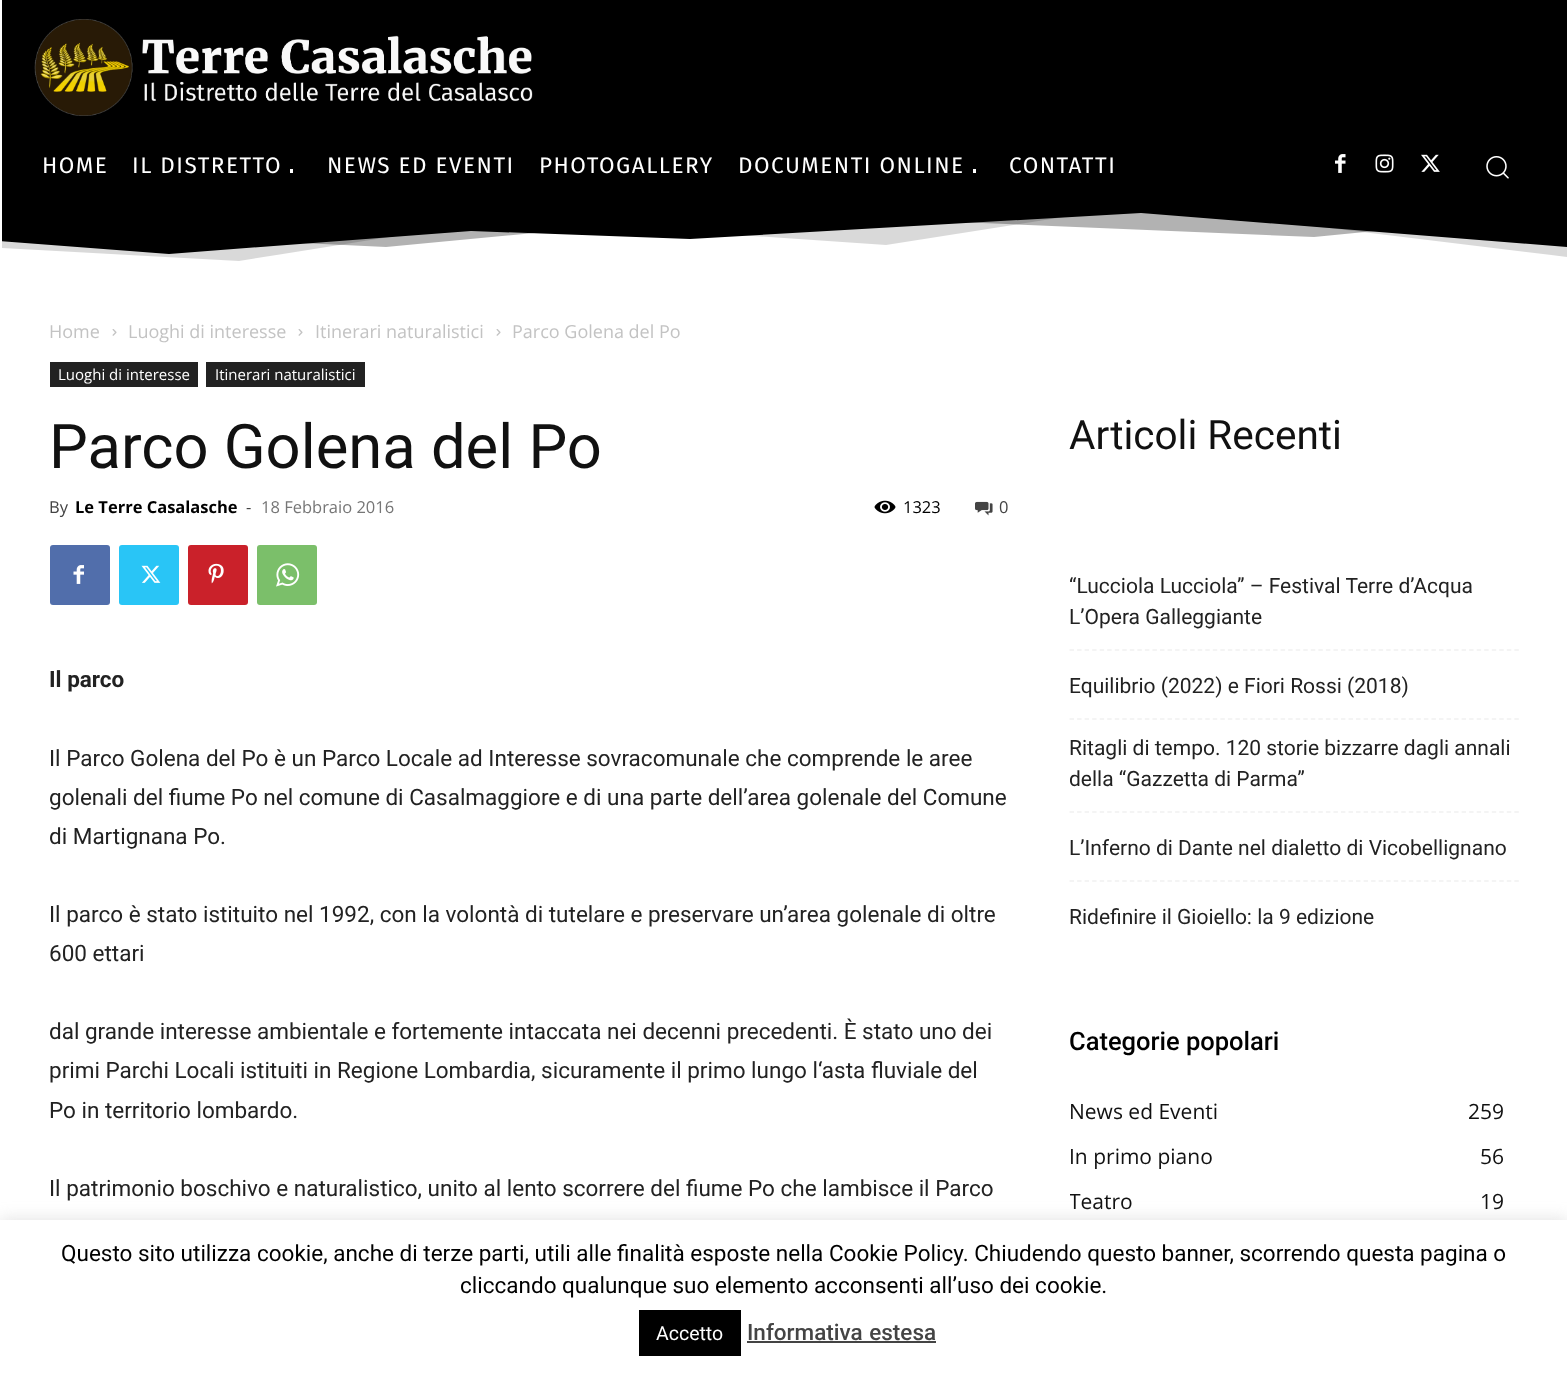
<svg xmlns="http://www.w3.org/2000/svg" width="1567" height="1374" viewBox="0 0 1567 1374">
  <defs>
    <clipPath id="clip1"><rect x="2" y="210" width="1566" height="60"/></clipPath>
    <clipPath id="clip2"><rect x="1070" y="551" width="450" height="420"/></clipPath>
    <clipPath id="clip3"><rect x="1070" y="1019" width="450" height="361"/></clipPath>
  </defs>
  <rect width="100%" height="100%" fill="rgb(255,255,255)"/>
  <rect x="2" y="0" width="1565" height="210" fill="rgb(0,0,0)"/>
  <image x="34" y="19" width="499" height="97" href="pic1.png"/>
  <g font-family="Fira Sans" font-size="22.5" letter-spacing="1.5" fill="rgb(255,255,255)">
    <text x="42" y="173">HOME</text>
    <text x="132" y="173">IL DISTRETTO</text>
  </g>
  <rect x="290" y="169" width="3" height="4" fill="rgb(255,255,255)"/>
  <g font-family="Fira Sans" font-size="22.5" letter-spacing="1.5" fill="rgb(255,255,255)">
    <text x="327" y="173">NEWS ED EVENTI</text>
    <text x="539" y="173">PHOTOGALLERY</text>
    <text x="738" y="173">DOCUMENTI ONLINE</text>
  </g>
  <rect x="973" y="169" width="3" height="4" fill="rgb(255,255,255)"/>
  <text x="1009" y="173" font-family="Fira Sans" font-size="22.5" letter-spacing="1.5" fill="rgb(255,255,255)">CONTATTI</text>
  <image x="1335" y="154" width="11" height="19" href="pic2.png"/>
  <image x="1375" y="154" width="19" height="19" href="pic3.png"/>
  <image x="1421" y="154" width="19" height="18" href="pic4.png"/>
  <image x="1486" y="156" width="23" height="23" href="pic5.png"/>
  <g clip-path="url(#clip1)">
    <path d="M0 193V241L169 254L471 231L690 239L1141 213L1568 247V193Z" fill="rgb(0,0,0)"/>
    <path d="M0 193V229L386 247L744 213L1314 237L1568 212V193Z" fill="rgba(0,0,0,0.3)"/>
    <path d="M0 193V248L239 261L502 219L886 245L1141 205L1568 257V193Z" fill="rgba(0,0,0,0.15)"/>
  </g>
  <text x="49" y="338" font-family="Open Sans" font-size="18" fill="rgb(195,195,195)">Home</text>
  <image x="112" y="329" width="5" height="7" href="pic6.png"/>
  <text x="128" y="338" font-family="Open Sans" font-size="18" fill="rgb(195,195,195)">Luoghi di interesse</text>
  <image x="298" y="329" width="5" height="7" href="pic6.png"/>
  <text x="315" y="338" font-family="Open Sans" font-size="18" fill="rgb(195,195,195)">Itinerari naturalistici</text>
  <image x="496" y="329" width="5" height="7" href="pic6.png"/>
  <text x="512" y="338" font-family="Open Sans" font-size="18" fill="rgb(195,195,195)">Parco Golena del Po</text>
  <rect x="50" y="362" width="148" height="25" fill="rgb(34,34,34)"/>
  <text x="58" y="380" font-family="Open Sans" font-size="15" fill="rgb(255,255,255)">Luoghi di interesse</text>
  <rect x="206" y="362" width="159" height="25" fill="rgb(34,34,34)"/>
  <text x="215" y="380" font-family="Open Sans" font-size="15" fill="rgb(255,255,255)">Itinerari naturalistici</text>
  <text x="49" y="468" font-family="Roboto" font-size="61.5" fill="rgb(17,17,17)">Parco Golena del Po</text>
  <text x="49" y="513" font-family="Open Sans" font-size="16.5" fill="rgb(68,68,68)">By</text>
  <text x="75" y="513" font-family="Open Sans" font-size="16.5" font-weight="bold" fill="rgb(0,0,0)">Le Terre Casalasche</text>
  <text x="246" y="513" font-family="Open Sans" font-size="16.5" fill="rgb(68,68,68)">-</text>
  <text x="261" y="513" font-family="Open Sans" font-size="16.5" fill="rgb(118,118,118)">18 Febbraio 2016</text>
  <image x="874" y="500" width="22" height="14" href="pic7.png"/>
  <text x="903" y="513" font-family="Open Sans" font-size="16.5" fill="rgb(0,0,0)">1323</text>
  <image x="975" y="501" width="18" height="15" href="pic8.png"/>
  <text x="999" y="513" font-family="Open Sans" font-size="16.5" fill="rgb(68,68,68)">0</text>
  <rect x="50" y="545" width="60" height="60" rx="3" fill="rgb(81,110,171)"/>
  <image x="73" y="565" width="11" height="19" href="pic9.png"/>
  <rect x="119" y="545" width="60" height="60" rx="3" fill="rgb(41,197,246)"/>
  <image x="141" y="565" width="20" height="18" href="pic10.png"/>
  <rect x="188" y="545" width="60" height="60" rx="3" fill="rgb(202,33,42)"/>
  <image x="208" y="563" width="16" height="21" href="pic11.png"/>
  <rect x="257" y="545" width="60" height="60" rx="3" fill="rgb(123,191,106)"/>
  <image x="276" y="563" width="24" height="24" href="pic12.png"/>
  <text x="49" y="687" font-family="Roboto" font-size="22.5" font-weight="bold" fill="rgb(34,34,34)">Il parco</text>
  <g font-family="Roboto" font-size="22.5" fill="rgb(34,34,34)">
    <text>
      <tspan x="49" y="766">Il Parco Golena del Po è un Parco Locale ad Interesse sovracomunale che comprende le aree</tspan>
      <tspan x="49" y="805">golenali del fiume Po nel comune di Casalmaggiore e di una parte dell’area golenale del Comune</tspan>
      <tspan x="49" y="844">di Martignana Po.</tspan>
    </text>
    <text>
      <tspan x="49" y="922">Il parco è stato istituito nel 1992, con la volontà di tutelare e preservare un’area golenale di oltre</tspan>
      <tspan x="49" y="961">600 ettari</tspan>
    </text>
    <text>
      <tspan x="49" y="1039">dal grande interesse ambientale e fortemente intaccata nei decenni precedenti. È stato uno dei</tspan>
      <tspan x="49" y="1078">primi Parchi Locali istituiti in Regione Lombardia, sicuramente il primo lungo l‘asta fluviale del</tspan>
      <tspan x="49" y="1118">Po in territorio lombardo.</tspan>
    </text>
    <text x="49" y="1196">Il patrimonio boschivo e naturalistico, unito al lento scorrere del fiume Po che lambisce il Parco</text>
  </g>
  <text x="1069" y="449" font-family="Roboto" font-size="40.5" fill="rgb(17,17,17)">Articoli Recenti</text>
  <path d="M1069.5 650H1519.5" fill="none" stroke="rgb(241,241,241)" stroke-width="1.5" stroke-dasharray="4.5 3.04"/>
  <g font-family="Roboto" font-size="21" fill="rgb(34,34,34)">
    <text>
      <tspan x="1069" y="593">“Lucciola Lucciola” – Festival Terre d’Acqua</tspan>
      <tspan x="1069" y="624">L’Opera Galleggiante</tspan>
    </text>
  </g>
  <path d="M1069.5 719H1519.5" fill="none" stroke="rgb(241,241,241)" stroke-width="1.5" stroke-dasharray="4.5 3.04"/>
  <text x="1069" y="693" font-family="Roboto" font-size="21" fill="rgb(34,34,34)">Equilibrio (2022) e Fiori Rossi (2018)</text>
  <path d="M1069.5 812H1519.5" fill="none" stroke="rgb(241,241,241)" stroke-width="1.5" stroke-dasharray="4.5 3.04"/>
  <text x="1069" y="755" font-family="Roboto" font-size="21" fill="rgb(34,34,34)">Ritagli di tempo. 120 storie bizzarre dagli annali</text>
  <g clip-path="url(#clip2)">
    <text x="1069" y="786" font-family="Roboto" font-size="21" fill="rgb(34,34,34)">della “Gazzetta di Parma”</text>
  </g>
  <path d="M1069.5 881H1519.5" fill="none" stroke="rgb(241,241,241)" stroke-width="1.5" stroke-dasharray="4.5 3.04"/>
  <g font-family="Roboto" font-size="21" fill="rgb(34,34,34)">
    <text x="1069" y="855">L’Inferno di Dante nel dialetto di Vicobellignano</text>
    <text x="1069" y="924">Ridefinire il Gioiello: la 9 edizione</text>
  </g>
  <text x="1069" y="1050" font-family="Roboto" font-size="25.5" font-weight="500" fill="rgb(0,0,0)">Categorie popolari</text>
  <g font-family="Open Sans" font-size="21" fill="rgb(17,17,17)">
    <text x="1069" y="1119">News ed Eventi</text>
    <text x="1468" y="1119">259</text>
    <text x="1069" y="1164">In primo piano</text>
    <text x="1480" y="1164">56</text>
  </g>
  <g clip-path="url(#clip3)">
    <text x="1069" y="1209" font-family="Open Sans" font-size="21" fill="rgb(17,17,17)">Teatro</text>
  </g>
  <text x="1480" y="1209" font-family="Open Sans" font-size="21" fill="rgb(17,17,17)">19</text>
  <rect x="0" y="1218" width="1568" height="155" fill="rgba(172,171,171,0.3)" filter="blur(7.5px)"/>
  <rect x="0" y="1220" width="1567" height="154" fill="rgb(255,255,255)"/>
  <g font-family="Roboto" font-size="22.5" fill="rgb(0,0,0)">
    <text x="61" y="1261">Questo sito utilizza cookie, anche di terze parti, utili alle finalità esposte nella Cookie Policy. Chiudendo questo banner, scorrendo questa pagina o</text>
    <text x="460" y="1293">cliccando qualunque suo elemento acconsenti all’uso dei cookie.</text>
  </g>
  <rect x="639" y="1310" width="102" height="46" fill="rgb(0,0,0)"/>
  <text x="656" y="1340" font-family="Roboto" font-size="19.5" fill="rgb(255,255,255)">Accetto</text>
  <text x="747" y="1340" word-spacing="1" font-family="Roboto" font-size="22.5" font-weight="500" fill="rgb(68,68,68)">Informativa estesa</text>
  <rect x="747" y="1341" width="189" height="2" fill="rgb(68,68,68)"/>
</svg>
